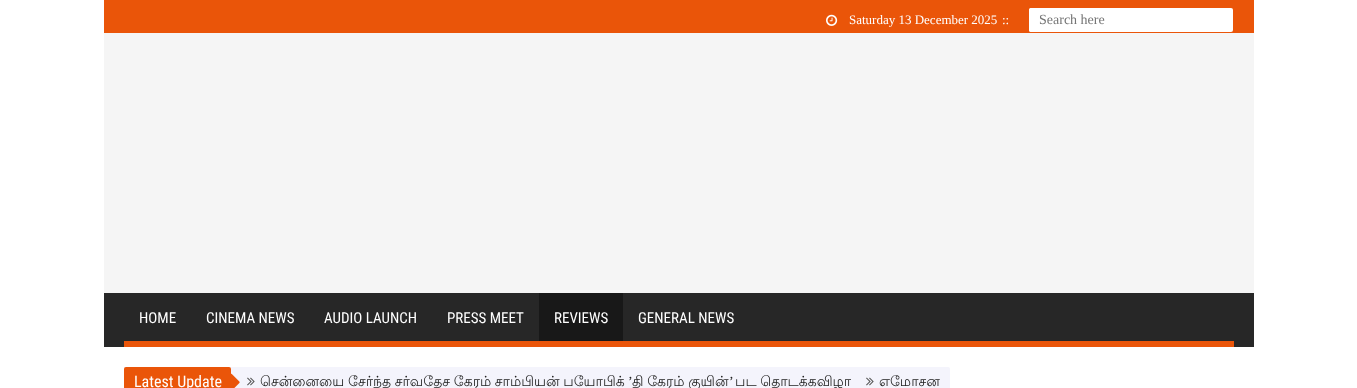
<svg xmlns="http://www.w3.org/2000/svg" width="1357" height="388" viewBox="0 0 1357 388">
  <rect width="100%" height="100%" fill="rgb(255,255,255)"/>
  <rect x="104" y="0" width="1150" height="33" fill="rgb(234,85,9)"/>
  <image x="826" y="14" width="12" height="12" href="pic1.png"/>
  <g font-family="Liberation Serif" font-size="13" fill="rgb(255,255,255)">
    <text x="849" y="24">Saturday 13 December 2025</text>
    <text x="1002" y="24">::</text>
  </g>
  <rect x="1029" y="8" width="204" height="24" rx="2" fill="rgb(255,255,255)"/>
  <path d="M1031 8H1199V32H1031C1030 32 1029 31 1029 30V10C1029 9 1030 8 1031 8Z" fill="rgb(255,255,255)"/>
  <text x="1039" y="24" font-family="Liberation Serif" font-size="14" fill="rgb(117,117,117)">Search here</text>
  <rect x="104" y="33" width="1150" height="260" fill="rgb(245,245,245)"/>
  <rect x="104" y="293" width="1150" height="54" fill="rgb(39,39,39)"/>
  <rect x="124" y="341" width="1110" height="6" fill="rgb(234,85,9)"/>
  <g font-family="Roboto Condensed" font-size="15" fill="rgb(255,255,255)">
    <text x="139" y="323">HOME</text>
    <text x="206" y="323">CINEMA NEWS</text>
    <text x="324" y="323">AUDIO LAUNCH</text>
    <text x="447" y="323">PRESS MEET</text>
  </g>
  <rect x="539" y="293" width="84" height="48" fill="rgb(24,24,24)"/>
  <g font-family="Roboto Condensed" font-size="15" fill="rgb(255,255,255)">
    <text x="554" y="323">REVIEWS</text>
    <text x="638" y="323">GENERAL NEWS</text>
  </g>
  <rect x="124" y="367" width="826" height="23" rx="2" fill="rgb(244,244,252)"/>
  <rect x="124" y="367" width="1" height="1" fill="rgb(244,244,252)"/>
  <rect x="124" y="367" width="107" height="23" rx="2" fill="rgb(234,85,9)"/>
  <text x="134" y="387" font-family="Roboto Condensed" font-size="16" fill="rgb(255,255,255)">Latest Update</text>
  <image x="231" y="373" width="9" height="15" href="pic2.png"/>
  <image x="247" y="377" width="8" height="9" href="pic3.png"/>
  <text x="260" y="386" word-spacing="-0.5" font-family="Lohit Tamil" font-size="14" fill="rgb(34,34,34)">சென்னையை சேர்ந்த சர்வதேச கேரம் சாம்பியன் பயோபிக்</text>
  <text x="628" y="386" font-family="Liberation Serif" font-size="14" fill="rgb(34,34,34)">’</text>
  <text x="632" y="386" word-spacing="-0.5" font-family="Lohit Tamil" font-size="14" fill="rgb(34,34,34)">தி கேரம் குயின்</text>
  <text x="729" y="386" font-family="Liberation Serif" font-size="14" fill="rgb(34,34,34)">’</text>
  <text x="735" y="386" word-spacing="-0.5" font-family="Lohit Tamil" font-size="14" fill="rgb(34,34,34)">பட தொடக்கவிழா</text>
  <image x="866" y="377" width="8" height="9" href="pic3.png"/>
  <text x="879" y="386" word-spacing="-1" font-family="Lohit Tamil" font-size="14" fill="rgb(34,34,34)">எமோசன</text>
</svg>
